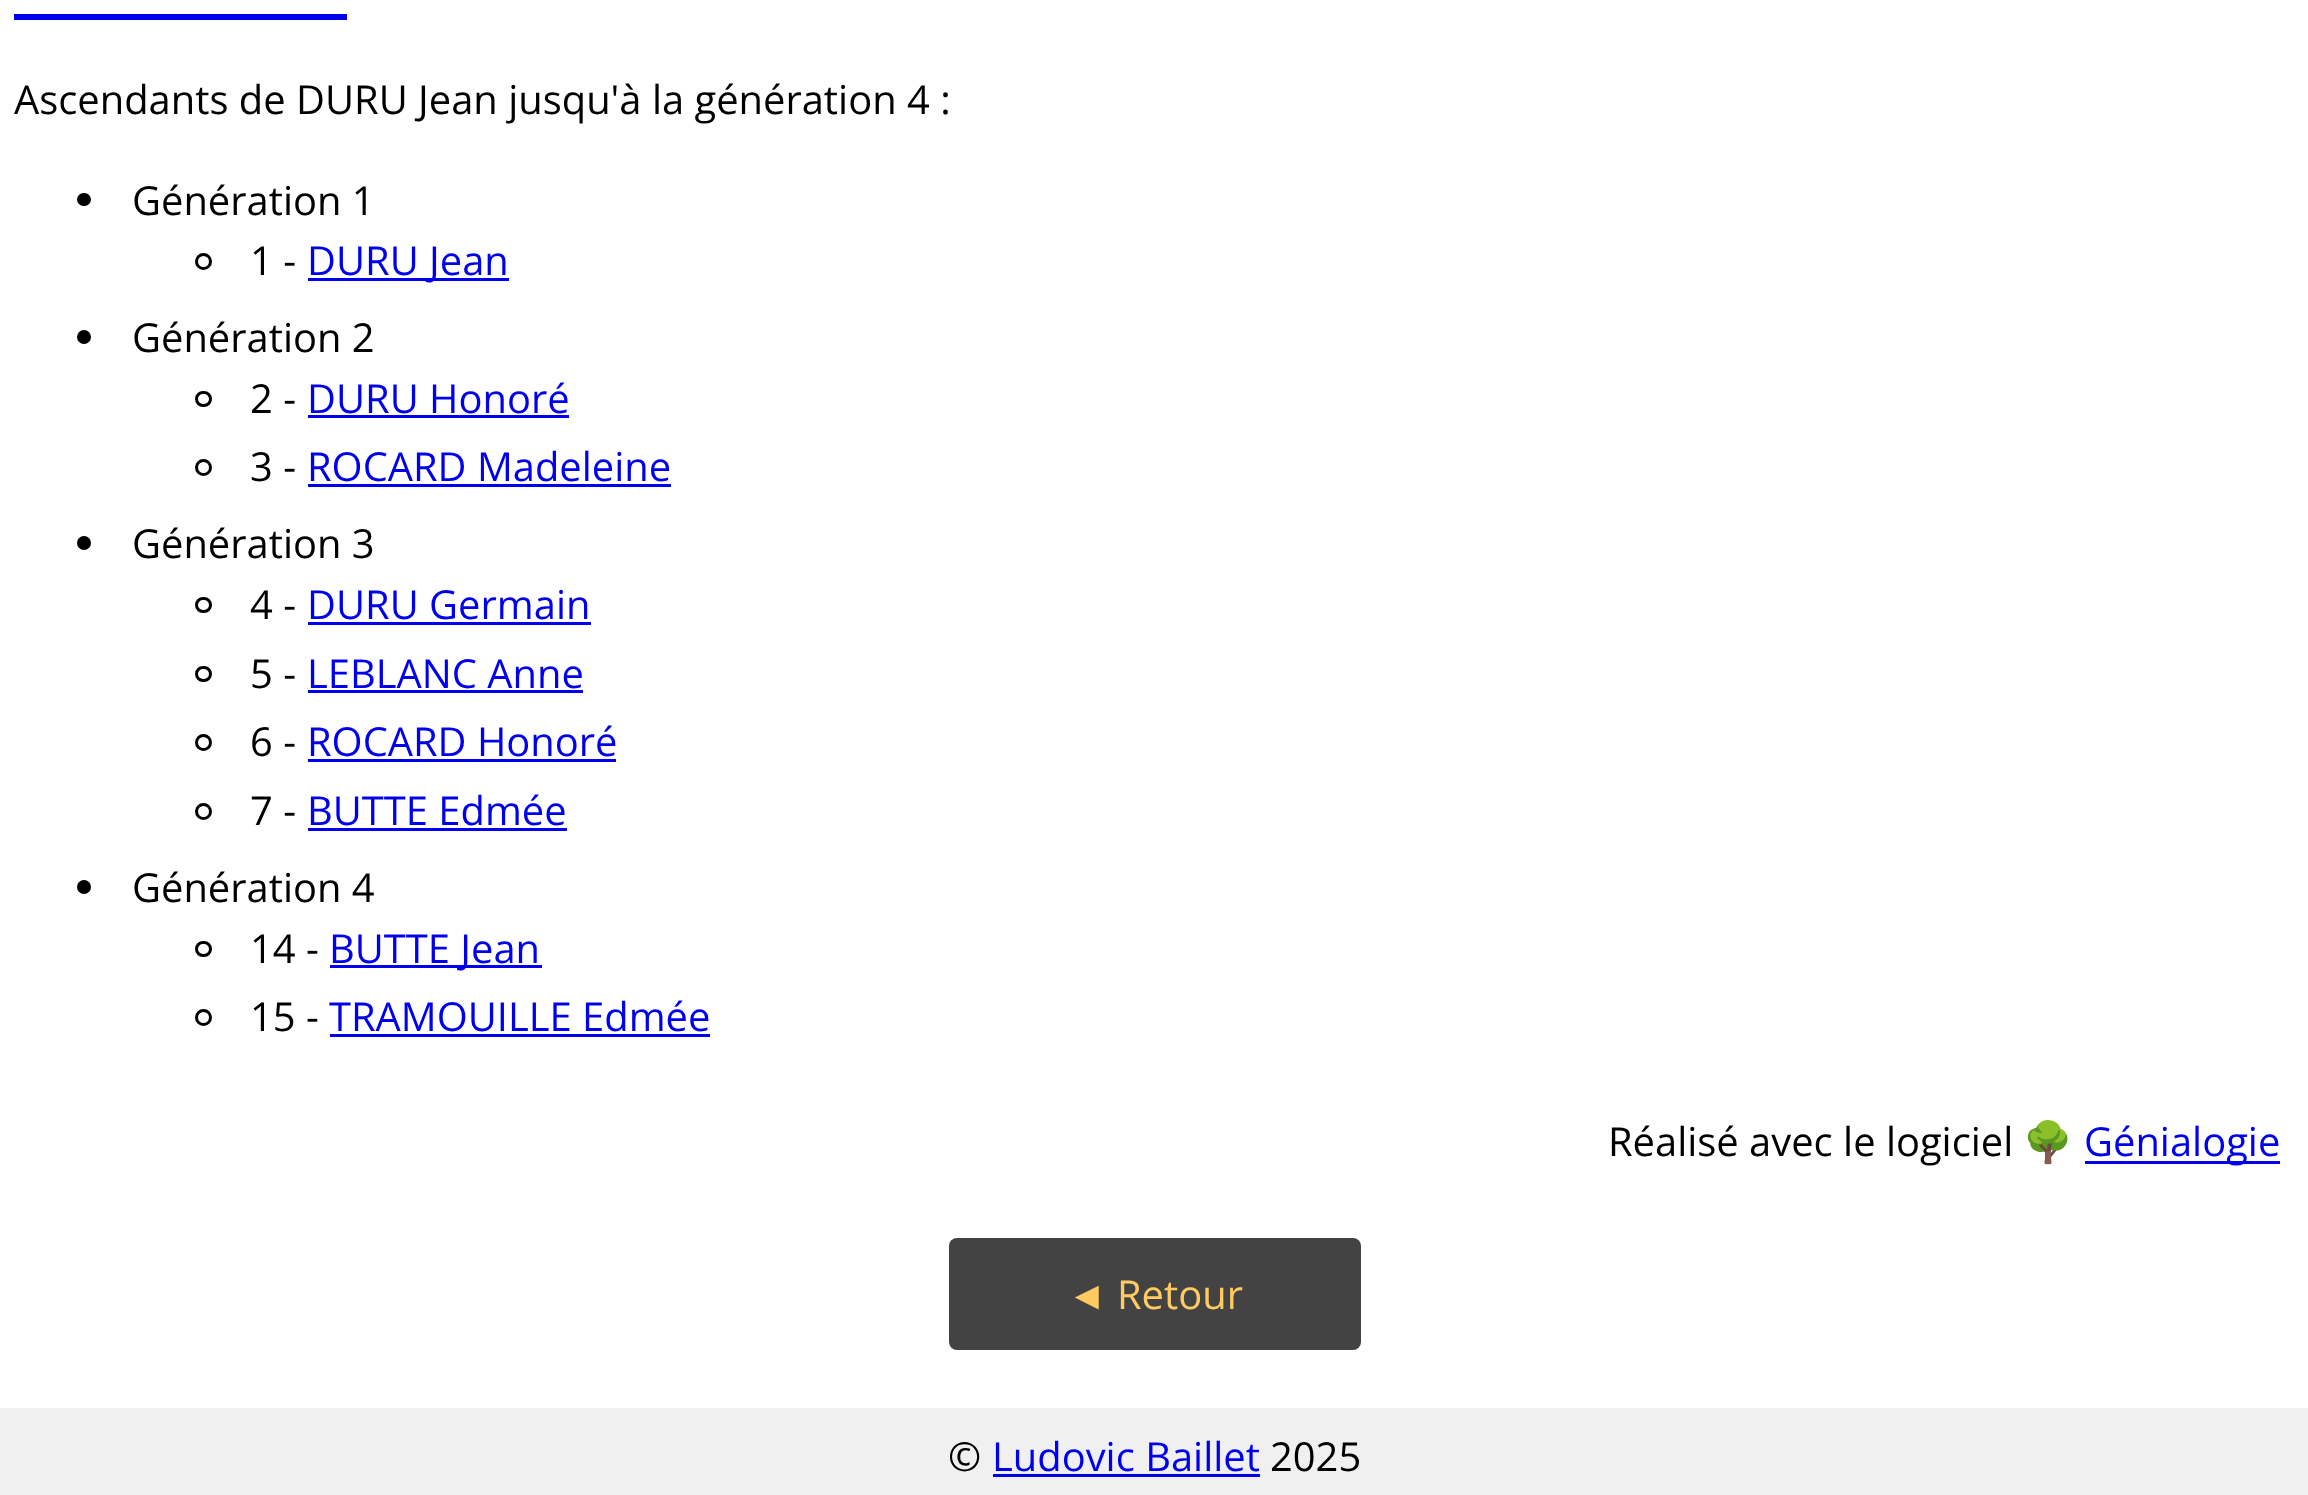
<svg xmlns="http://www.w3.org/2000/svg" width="2308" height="1495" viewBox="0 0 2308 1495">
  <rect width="100%" height="100%" fill="rgb(240,240,240)"/>
  <rect x="0" y="0" width="2308" height="1408" fill="rgb(255,255,255)"/>
  <rect x="14" y="14" width="333" height="6" fill="rgb(0,0,238)"/>
  <text x="14" y="114" font-family="Open Sans" font-size="39.9" fill="rgb(0,0,0)">Ascendants de DURU Jean jusqu'à la génération 4 :</text>
  <rect x="77" y="193" width="14" height="13" rx="6.5" fill="rgb(0,0,0)"/>
  <text x="132" y="215" font-family="Open Sans" font-size="39.9" fill="rgb(0,0,0)">Génération 1</text>
  <circle cx="203.5" cy="261.5" r="7" fill="none" stroke="rgb(0,0,0)" stroke-width="3"/>
  <text x="250" y="275" font-family="Open Sans" font-size="39.9" fill="rgb(0,0,0)">1 -</text>
  <rect x="308" y="278" width="201" height="3" fill="rgb(0,0,238)"/>
  <text x="307" y="275" font-family="Open Sans" font-size="39.9" fill="rgb(0,0,238)">DURU Jean</text>
  <circle cx="84" cy="337" r="7" fill="rgb(0,0,0)"/>
  <text x="132" y="352" font-family="Open Sans" font-size="39.9" fill="rgb(0,0,0)">Génération 2</text>
  <rect x="196.5" y="392.5" width="14" height="13" rx="6.5" fill="none" stroke="rgb(0,0,0)" stroke-width="3"/>
  <text x="250" y="413" font-family="Open Sans" font-size="39.9" fill="rgb(0,0,0)">2 -</text>
  <text x="307" y="413" font-family="Open Sans" font-size="39.9" fill="rgb(0,0,238)">DURU Honoré</text>
  <rect x="308" y="415" width="261" height="3" fill="rgb(0,0,238)"/>
  <circle cx="203.5" cy="467.5" r="7" fill="none" stroke="rgb(0,0,0)" stroke-width="3"/>
  <text x="250" y="481" font-family="Open Sans" font-size="39.9" fill="rgb(0,0,0)">3 -</text>
  <text x="307" y="481" font-family="Open Sans" font-size="39.9" fill="rgb(0,0,238)">ROCARD Madeleine</text>
  <rect x="308" y="484" width="363" height="3" fill="rgb(0,0,238)"/>
  <circle cx="84" cy="543" r="7" fill="rgb(0,0,0)"/>
  <text x="132" y="558" font-family="Open Sans" font-size="39.9" fill="rgb(0,0,0)">Génération 3</text>
  <rect x="196.5" y="598.5" width="14" height="13" rx="6.5" fill="none" stroke="rgb(0,0,0)" stroke-width="3"/>
  <text x="250" y="619" font-family="Open Sans" font-size="39.9" fill="rgb(0,0,0)">4 -</text>
  <text x="307" y="619" font-family="Open Sans" font-size="39.9" fill="rgb(0,0,238)">DURU Germain</text>
  <rect x="308" y="622" width="283" height="3" fill="rgb(0,0,238)"/>
  <rect x="196.5" y="667.5" width="14" height="13" rx="6.5" fill="none" stroke="rgb(0,0,0)" stroke-width="3"/>
  <text x="250" y="688" font-family="Open Sans" font-size="39.9" fill="rgb(0,0,0)">5 -</text>
  <text x="307" y="688" font-family="Open Sans" font-size="39.9" fill="rgb(0,0,238)">LEBLANC Anne</text>
  <rect x="308" y="690" width="275" height="3" fill="rgb(0,0,238)"/>
  <circle cx="203.5" cy="742.5" r="7" fill="none" stroke="rgb(0,0,0)" stroke-width="3"/>
  <text x="250" y="756" font-family="Open Sans" font-size="39.9" fill="rgb(0,0,0)">6 -</text>
  <text x="307" y="756" font-family="Open Sans" font-size="39.9" fill="rgb(0,0,238)">ROCARD Honoré</text>
  <rect x="308" y="759" width="308" height="3" fill="rgb(0,0,238)"/>
  <circle cx="203.5" cy="811.5" r="7" fill="none" stroke="rgb(0,0,0)" stroke-width="3"/>
  <text x="250" y="825" font-family="Open Sans" font-size="39.9" fill="rgb(0,0,0)">7 -</text>
  <text x="307" y="825" font-family="Open Sans" font-size="39.9" fill="rgb(0,0,238)">BUTTE Edmée</text>
  <rect x="308" y="828" width="259" height="3" fill="rgb(0,0,238)"/>
  <circle cx="84" cy="887" r="7" fill="rgb(0,0,0)"/>
  <text x="132" y="902" font-family="Open Sans" font-size="39.9" fill="rgb(0,0,0)">Génération 4</text>
  <rect x="196.5" y="942.5" width="14" height="13" rx="6.5" fill="none" stroke="rgb(0,0,0)" stroke-width="3"/>
  <text x="250" y="963" font-family="Open Sans" font-size="39.9" fill="rgb(0,0,0)">14 -</text>
  <rect x="330" y="965" width="212" height="3" fill="rgb(0,0,238)"/>
  <text x="329" y="963" font-family="Open Sans" font-size="39.9" fill="rgb(0,0,238)">BUTTE Jean</text>
  <circle cx="203.5" cy="1017.5" r="7" fill="none" stroke="rgb(0,0,0)" stroke-width="3"/>
  <text x="250" y="1031" font-family="Open Sans" font-size="39.9" fill="rgb(0,0,0)">15 -</text>
  <text x="329" y="1031" font-family="Open Sans" font-size="39.9" fill="rgb(0,0,238)">TRAMOUILLE Edmée</text>
  <rect x="330" y="1034" width="380" height="3" fill="rgb(0,0,238)"/>
  <text x="1608" y="1156" font-family="Open Sans" font-size="39.9" fill="rgb(0,0,0)">Réalisé avec le logiciel</text>
  <text x="2023" y="1156" font-family="Noto Color Emoji" font-size="39.9" fill="rgb(0,0,0)">🌳</text>
  <rect x="2085" y="1161" width="195" height="3" fill="rgb(0,0,238)"/>
  <text x="2084" y="1156" font-family="Open Sans" font-size="39.9" fill="rgb(0,0,238)">Génialogie</text>
  <rect x="949" y="1238" width="412" height="112" rx="8" fill="rgb(67,67,67)"/>
  <text x="1067" y="1309" font-family="Liberation Sans" font-size="39.9" fill="rgb(255,203,96)">◄</text>
  <text x="1117" y="1309" font-family="Open Sans" font-size="39.9" fill="rgb(255,203,96)">Retour</text>
  <text x="948" y="1471" font-family="Open Sans" font-size="39.9" fill="rgb(0,0,0)">©</text>
  <text x="992" y="1471" font-family="Open Sans" font-size="39.9" fill="rgb(0,0,238)">Ludovic Baillet</text>
  <rect x="993" y="1474" width="267" height="3" fill="rgb(0,0,238)"/>
  <text x="1270" y="1471" font-family="Open Sans" font-size="39.9" fill="rgb(0,0,0)">2025</text>
</svg>
